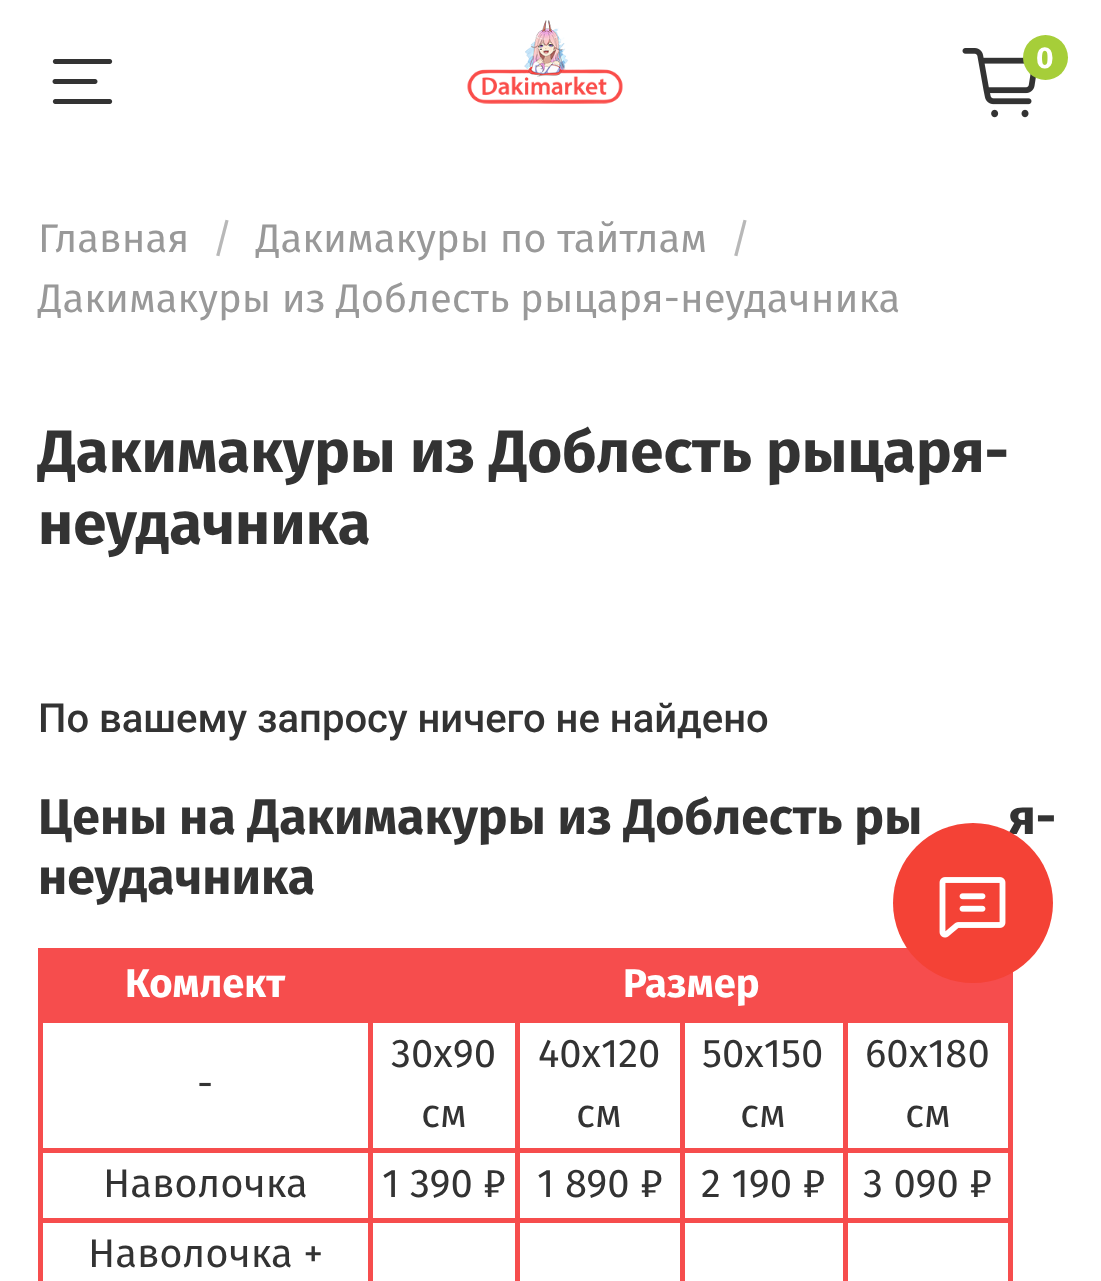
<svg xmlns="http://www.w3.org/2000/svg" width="1101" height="1281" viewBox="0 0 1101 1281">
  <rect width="100%" height="100%" fill="rgb(255,255,255)"/>
  <image x="52" y="59" width="61" height="45" href="pic1.png"/>
  <image x="467" y="20" width="156" height="84" href="pic2.png"/>
  <image x="962" y="48" width="74" height="70" href="pic3.png"/>
  <circle cx="1045.5" cy="57.5" r="22.5" fill="rgb(166,206,57)"/>
  <text x="1036" y="68" font-family="Fira Sans" font-size="30" font-weight="bold" fill="rgb(255,255,255)">0</text>
  <text x="38" y="252" font-family="Fira Sans" font-size="40" fill="rgb(153,153,153)">Главная</text>
  <text x="212" y="252" font-family="Fira Sans" font-size="40" fill="rgb(184,184,184)">/</text>
  <text x="256" y="252" font-family="Fira Sans" font-size="40" fill="rgb(153,153,153)">Дакимакуры по тайтлам</text>
  <text x="730" y="252" font-family="Fira Sans" font-size="40" fill="rgb(184,184,184)">/</text>
  <text x="38" y="312" font-family="Fira Sans" font-size="40" fill="rgb(153,153,153)">Дакимакуры из Доблесть рыцаря-неудачника</text>
  <g font-family="Fira Sans" font-size="60" font-weight="bold" fill="rgb(51,51,51)">
    <text>
      <tspan x="38" y="472">Дакимакуры из Доблесть рыцаря-</tspan>
      <tspan x="38" y="544">неудачника</tspan>
    </text>
  </g>
  <text x="38" y="732" font-family="Roboto" font-size="40" font-weight="500" fill="rgb(51,51,51)">По вашему запросу ничего не найдено</text>
  <g font-family="Fira Sans" font-size="50" font-weight="bold" fill="rgb(51,51,51)">
    <text x="38" y="834">Цены на Дакимакуры из Доблесть ры</text>
    <text x="1008" y="834">я-</text>
    <text x="38" y="894">неудачника</text>
  </g>
  <rect x="43" y="953" width="965" height="65" fill="rgb(246,77,77)"/>
  <rect x="38" y="948" width="873" height="5" fill="rgb(246,77,77)"/>
  <rect x="843" y="1018" width="170" height="5" fill="rgb(246,77,77)"/>
  <rect x="843" y="1148" width="170" height="5" fill="rgb(246,77,77)"/>
  <rect x="843" y="1218" width="170" height="5" fill="rgb(246,77,77)"/>
  <rect x="843" y="1218" width="5" height="63" fill="rgb(246,77,77)"/>
  <rect x="680" y="1218" width="168" height="5" fill="rgb(246,77,77)"/>
  <rect x="843" y="1148" width="5" height="75" fill="rgb(246,77,77)"/>
  <rect x="680" y="1148" width="168" height="5" fill="rgb(246,77,77)"/>
  <rect x="843" y="1018" width="5" height="135" fill="rgb(246,77,77)"/>
  <rect x="680" y="1018" width="168" height="5" fill="rgb(246,77,77)"/>
  <rect x="680" y="1218" width="5" height="63" fill="rgb(246,77,77)"/>
  <rect x="515" y="1218" width="170" height="5" fill="rgb(246,77,77)"/>
  <rect x="680" y="1148" width="5" height="75" fill="rgb(246,77,77)"/>
  <rect x="515" y="1148" width="170" height="5" fill="rgb(246,77,77)"/>
  <rect x="680" y="1018" width="5" height="135" fill="rgb(246,77,77)"/>
  <rect x="515" y="1018" width="170" height="5" fill="rgb(246,77,77)"/>
  <rect x="515" y="1218" width="5" height="63" fill="rgb(246,77,77)"/>
  <rect x="368" y="1218" width="152" height="5" fill="rgb(246,77,77)"/>
  <rect x="515" y="1148" width="5" height="75" fill="rgb(246,77,77)"/>
  <rect x="368" y="1148" width="152" height="5" fill="rgb(246,77,77)"/>
  <rect x="515" y="1018" width="5" height="135" fill="rgb(246,77,77)"/>
  <rect x="368" y="1018" width="152" height="5" fill="rgb(246,77,77)"/>
  <rect x="368" y="1218" width="5" height="63" fill="rgb(246,77,77)"/>
  <rect x="38" y="1218" width="335" height="5" fill="rgb(246,77,77)"/>
  <rect x="368" y="1148" width="5" height="75" fill="rgb(246,77,77)"/>
  <rect x="38" y="1148" width="335" height="5" fill="rgb(246,77,77)"/>
  <rect x="368" y="1018" width="5" height="135" fill="rgb(246,77,77)"/>
  <rect x="38" y="1018" width="335" height="5" fill="rgb(246,77,77)"/>
  <rect x="38" y="1218" width="5" height="63" fill="rgb(246,77,77)"/>
  <rect x="38" y="1148" width="5" height="75" fill="rgb(246,77,77)"/>
  <rect x="38" y="1018" width="5" height="135" fill="rgb(246,77,77)"/>
  <rect x="38" y="948" width="5" height="75" fill="rgb(246,77,77)"/>
  <g font-family="Fira Sans" font-size="40" font-weight="bold" fill="rgb(255,255,255)">
    <text x="125" y="997">Комлект</text>
    <text x="623" y="997">Размер</text>
  </g>
  <g font-family="Fira Sans" font-size="40" fill="rgb(51,51,51)">
    <text x="197" y="1097">-</text>
    <text x="391" y="1067">30х90</text>
    <text x="421" y="1127">см</text>
    <text x="538" y="1067">40х120</text>
    <text x="576" y="1127">см</text>
    <text x="702" y="1067">50х150</text>
    <text x="740" y="1127">см</text>
  </g>
  <rect x="1008" y="1218" width="5" height="63" fill="rgb(246,77,77)"/>
  <rect x="1008" y="1148" width="5" height="75" fill="rgb(246,77,77)"/>
  <rect x="1008" y="972" width="5" height="181" fill="rgb(246,77,77)"/>
  <g font-family="Fira Sans" font-size="40" fill="rgb(51,51,51)">
    <text x="865" y="1067">60х180</text>
    <text x="905" y="1127">см</text>
    <text x="103" y="1197">Наволочка</text>
    <text x="382" y="1197">1 390 ₽</text>
    <text x="537" y="1197">1 890 ₽</text>
    <text x="701" y="1197">2 190 ₽</text>
    <text x="863" y="1197">3 090 ₽</text>
    <text x="88" y="1267">Наволочка +</text>
  </g>
  <circle cx="973" cy="903" r="80" fill="rgb(244,66,54)"/>
  <image x="939" y="877" width="67" height="61" href="pic4.png"/>
</svg>
